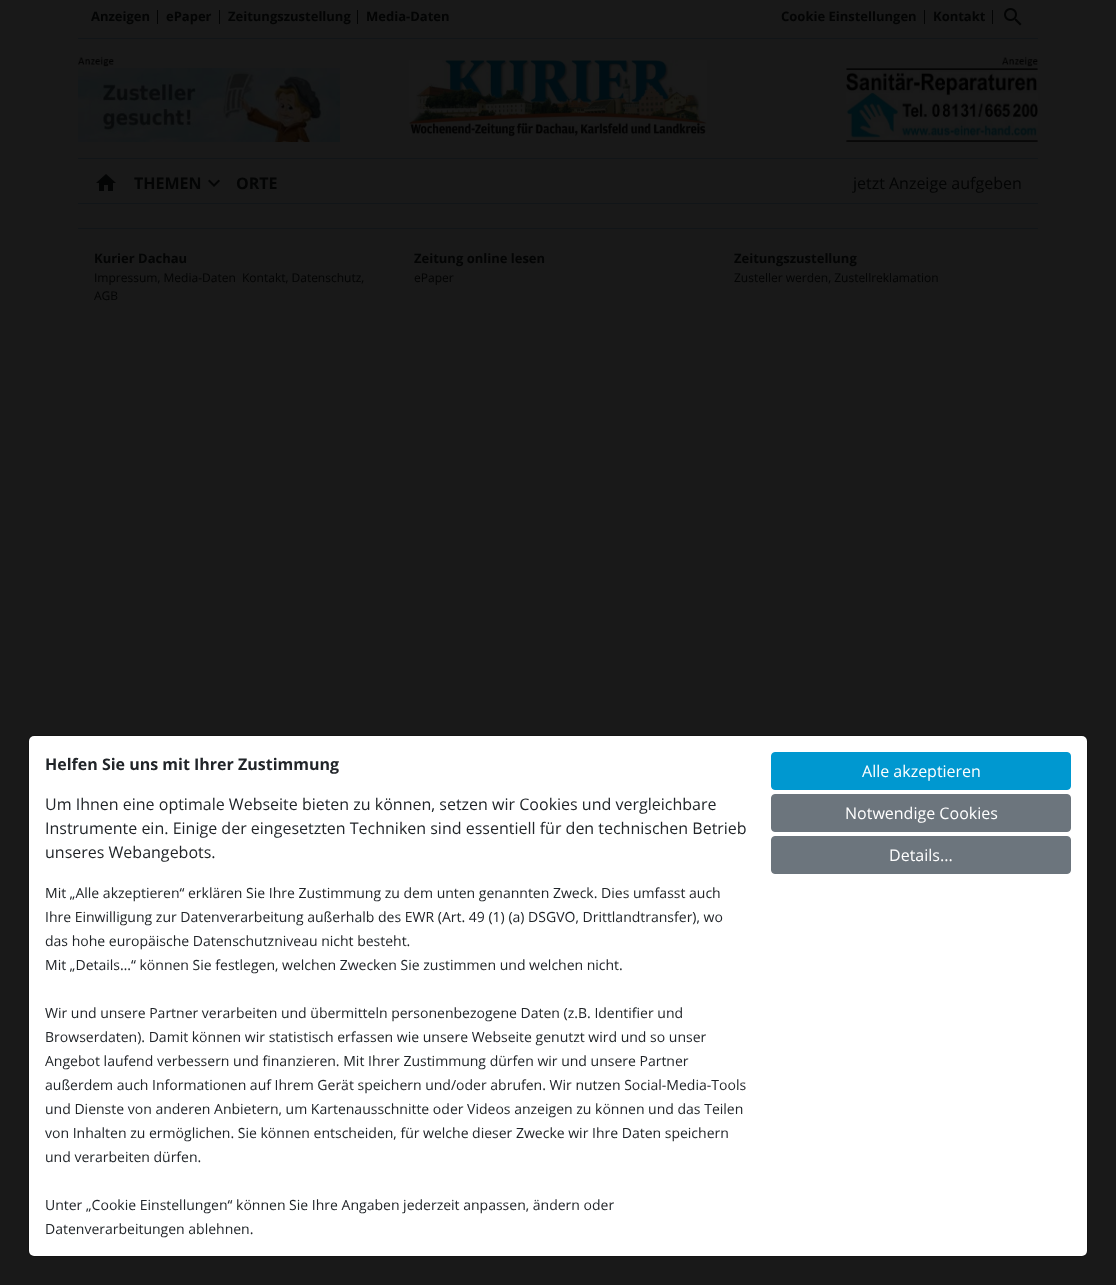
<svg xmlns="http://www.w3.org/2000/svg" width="1116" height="1285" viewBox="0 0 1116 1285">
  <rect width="100%" height="100%" fill="rgb(25,25,25)"/>
  <text x="91" y="21" font-family="Open Sans" font-size="13" font-weight="bold" fill="rgb(3,4,4)">Anzeigen</text>
  <rect x="157" y="10" width="1" height="14" fill="rgb(3,4,4)"/>
  <text x="166" y="21" font-family="Open Sans" font-size="13" font-weight="bold" fill="rgb(3,4,4)">ePaper</text>
  <rect x="219" y="10" width="1" height="14" fill="rgb(3,4,4)"/>
  <text x="228" y="21" font-family="Open Sans" font-size="13" font-weight="bold" fill="rgb(3,4,4)">Zeitungszustellung</text>
  <rect x="357" y="10" width="1" height="14" fill="rgb(3,4,4)"/>
  <g font-family="Open Sans" font-size="13" font-weight="bold" fill="rgb(3,4,4)">
    <text x="366" y="21">Media-Daten</text>
    <text x="781" y="21">Cookie Einstellungen</text>
  </g>
  <rect x="924" y="10" width="1" height="14" fill="rgb(3,4,4)"/>
  <text x="933" y="21" font-family="Open Sans" font-size="13" font-weight="bold" fill="rgb(3,4,4)">Kontakt</text>
  <rect x="992" y="10" width="1" height="14" fill="rgb(3,4,4)"/>
  <image x="1004" y="8" width="18" height="18" href="pic1.png"/>
  <rect x="78" y="38" width="960" height="1" fill="rgb(17,21,24)"/>
  <image x="78" y="56" width="36" height="11" href="pic2.png"/>
  <image x="78" y="68" width="262" height="74" href="pic3.png"/>
  <image x="409" y="60" width="298" height="77" href="pic4.png"/>
  <image x="1002" y="56" width="36" height="11" href="pic2.png"/>
  <image x="846" y="68" width="192" height="74" href="pic5.png"/>
  <rect x="78" y="158" width="960" height="1" fill="rgb(17,21,24)"/>
  <image x="96" y="174" width="20" height="17" href="pic6.png"/>
  <text x="134" y="189" font-family="Open Sans" font-size="16" font-weight="bold" fill="rgb(3,4,4)">THEMEN</text>
  <image x="208" y="179" width="12" height="8" href="pic7.png"/>
  <text x="236" y="189" font-family="Open Sans" font-size="16" font-weight="bold" fill="rgb(3,4,4)">ORTE</text>
  <text x="853" y="189" font-family="Open Sans" font-size="16" fill="rgb(3,4,4)">jetzt Anzeige aufgeben</text>
  <rect x="78" y="203" width="960" height="1" fill="rgb(17,21,24)"/>
  <rect x="78" y="228" width="960" height="1" fill="rgb(17,21,24)"/>
  <text x="94" y="263" font-family="Open Sans" font-size="13" font-weight="bold" fill="rgb(3,4,4)">Kurier Dachau</text>
  <g font-family="Open Sans" font-size="12" fill="rgb(3,4,4)">
    <text x="94" y="282">Impressum, Media-Daten</text>
    <text x="242" y="282">Kontakt, Datenschutz,</text>
    <text x="94" y="300">AGB</text>
  </g>
  <text x="414" y="263" font-family="Open Sans" font-size="13" font-weight="bold" fill="rgb(3,4,4)">Zeitung online lesen</text>
  <text x="414" y="282" font-family="Open Sans" font-size="12" fill="rgb(3,4,4)">ePaper</text>
  <text x="734" y="263" font-family="Open Sans" font-size="13" font-weight="bold" fill="rgb(3,4,4)">Zeitungszustellung</text>
  <text x="734" y="282" font-family="Open Sans" font-size="12" fill="rgb(3,4,4)">Zusteller werden, Zustellreklamation</text>
  <rect x="29" y="736" width="1058" height="520" rx="5" fill="rgb(255,255,255)"/>
  <rect x="28.5" y="735.5" width="1059" height="521" rx="5.5" fill="none" stroke="rgba(0,0,0,0.18)"/>
  <text x="45" y="770" font-family="Open Sans" font-size="16" font-weight="bold" fill="rgb(33,37,41)">Helfen Sie uns mit Ihrer Zustimmung</text>
  <g font-family="Open Sans" font-size="16" fill="rgb(33,37,41)">
    <text>
      <tspan x="45" y="810">Um Ihnen eine optimale Webseite bieten zu können, setzen wir Cookies und vergleichbare</tspan>
      <tspan x="45" y="834">Instrumente ein. Einige der eingesetzten Techniken sind essentiell für den technischen Betrieb</tspan>
      <tspan x="45" y="858">unseres Webangebots.</tspan>
    </text>
  </g>
  <g font-family="Open Sans" font-size="14" fill="rgb(33,37,41)">
    <text>
      <tspan x="45" y="898">Mit „Alle akzeptieren“ erklären Sie Ihre Zustimmung zu dem unten genannten Zweck. Dies umfasst auch</tspan>
      <tspan x="45" y="922">Ihre Einwilligung zur Datenverarbeitung außerhalb des EWR (Art. 49 (1) (a) DSGVO, Drittlandtransfer), wo</tspan>
      <tspan x="45" y="946">das hohe europäische Datenschutzniveau nicht besteht.</tspan>
      <tspan x="45" y="970">Mit „Details…“ können Sie festlegen, welchen Zwecken Sie zustimmen und welchen nicht.</tspan>
    </text>
    <text>
      <tspan x="45" y="1018">Wir und unsere Partner verarbeiten und übermitteln personenbezogene Daten (z.B. Identifier und</tspan>
      <tspan x="45" y="1042">Browserdaten). Damit können wir statistisch erfassen wie unsere Webseite genutzt wird und so unser</tspan>
      <tspan x="45" y="1066">Angebot laufend verbessern und finanzieren. Mit Ihrer Zustimmung dürfen wir und unsere Partner</tspan>
      <tspan x="45" y="1090">außerdem auch Informationen auf Ihrem Gerät speichern und/oder abrufen. Wir nutzen Social-Media-Tools</tspan>
      <tspan x="45" y="1114">und Dienste von anderen Anbietern, um Kartenausschnitte oder Videos anzeigen zu können und das Teilen</tspan>
      <tspan x="45" y="1138">von Inhalten zu ermöglichen. Sie können entscheiden, für welche dieser Zwecke wir Ihre Daten speichern</tspan>
      <tspan x="45" y="1162">und verarbeiten dürfen.</tspan>
    </text>
    <text>
      <tspan x="45" y="1210">Unter „Cookie Einstellungen“ können Sie Ihre Angaben jederzeit anpassen, ändern oder</tspan>
      <tspan x="45" y="1234">Datenverarbeitungen ablehnen.</tspan>
    </text>
  </g>
  <rect x="771.5" y="752.5" width="299" height="37" rx="3.5" fill="rgb(0,152,208)" stroke="rgb(0,152,208)"/>
  <text x="862" y="777" font-family="Open Sans" font-size="16" fill="rgb(255,255,255)">Alle akzeptieren</text>
  <rect x="771.5" y="794.5" width="299" height="37" rx="3.5" fill="rgb(108,117,125)" stroke="rgb(108,117,125)"/>
  <text x="845" y="819" font-family="Open Sans" font-size="16" fill="rgb(255,255,255)">Notwendige Cookies</text>
  <rect x="771.5" y="836.5" width="299" height="37" rx="3.5" fill="rgb(108,117,125)" stroke="rgb(108,117,125)"/>
  <text x="889" y="861" font-family="Open Sans" font-size="16" fill="rgb(255,255,255)">Details...</text>
</svg>
